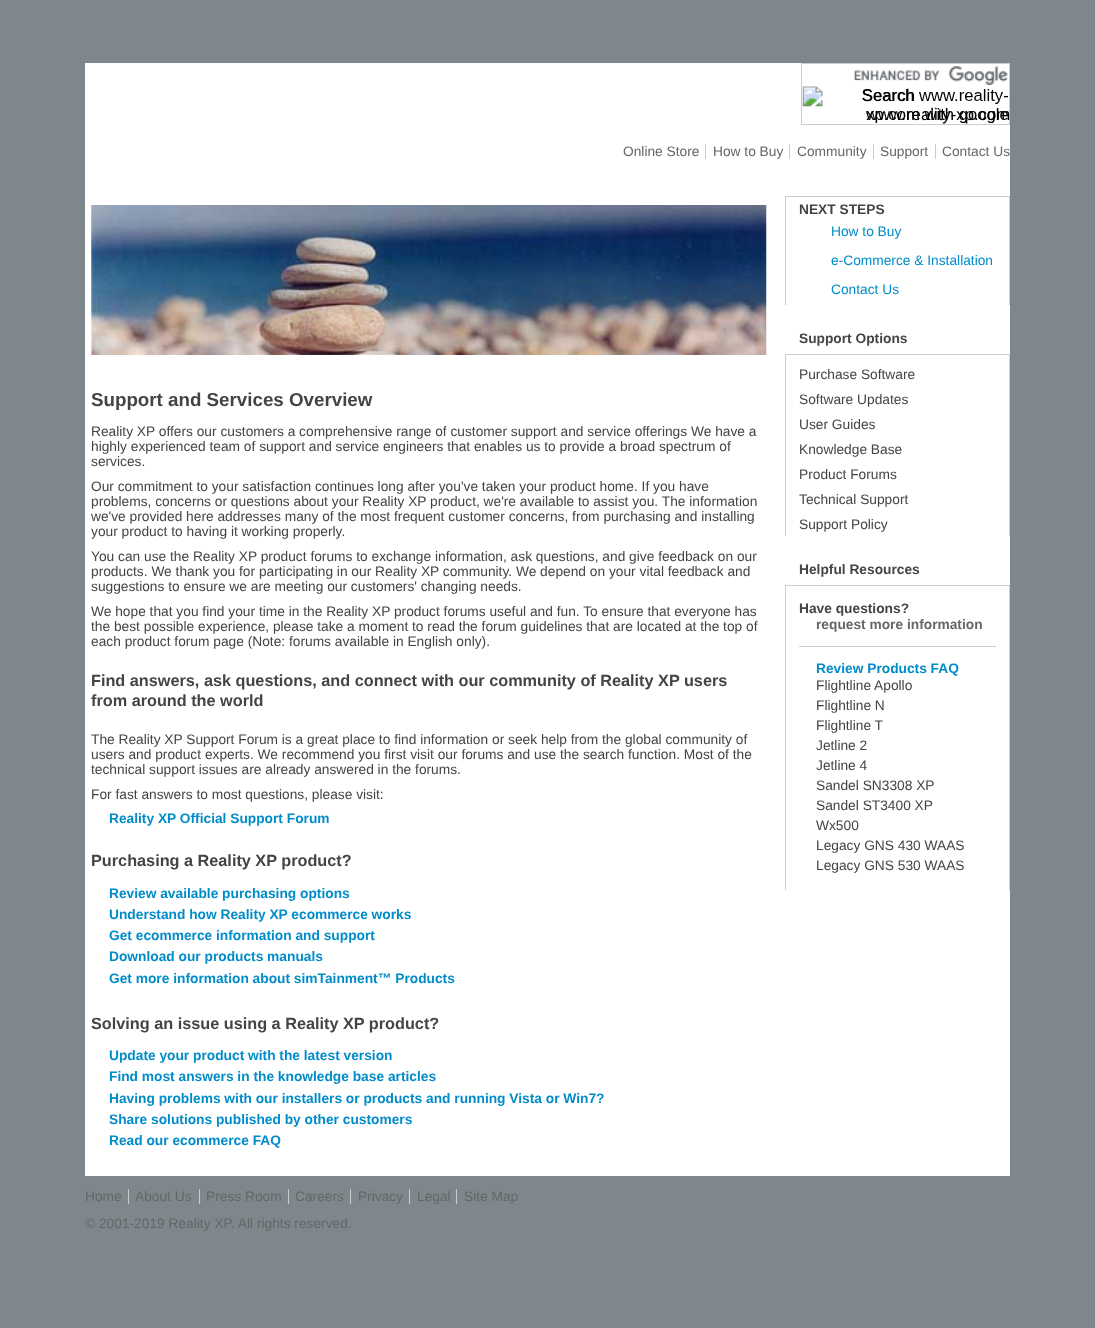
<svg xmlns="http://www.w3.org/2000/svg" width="1095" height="1328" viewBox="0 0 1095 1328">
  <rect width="100%" height="100%" fill="rgb(126,135,140)"/>
  <rect x="85" y="63" width="925" height="1113" fill="rgb(255,255,255)"/>
  <rect x="801.5" y="63.5" width="208" height="61" fill="none" stroke="rgb(204,204,204)"/>
  <image x="853" y="66" width="155" height="19" href="pic1.png"/>
  <image x="802" y="86" width="207" height="37" href="pic2.png"/>
  <g font-family="Liberation Sans" font-size="16.75" fill="rgb(0,0,0)">
    <text x="862" y="101">Search</text>
    <text x="866" y="120">www.reality-xp.com</text>
  </g>
  <rect x="705" y="144" width="1" height="15" fill="rgb(204,204,204)"/>
  <text x="623" y="156" font-family="Liberation Sans" font-size="13.75" fill="rgb(102,102,102)">Online Store</text>
  <rect x="789" y="144" width="1" height="15" fill="rgb(204,204,204)"/>
  <text x="713" y="156" font-family="Liberation Sans" font-size="13.75" fill="rgb(102,102,102)">How to Buy</text>
  <rect x="873" y="144" width="1" height="15" fill="rgb(204,204,204)"/>
  <text x="797" y="156" font-family="Liberation Sans" font-size="13.75" fill="rgb(102,102,102)">Community</text>
  <rect x="935" y="144" width="1" height="15" fill="rgb(204,204,204)"/>
  <g font-family="Liberation Sans" font-size="13.75" fill="rgb(102,102,102)">
    <text x="880" y="156">Support</text>
    <text x="942" y="156">Contact Us</text>
  </g>
  <image x="91" y="205" width="676" height="150" href="pic3.png"/>
  <text x="91" y="406" font-family="Liberation Sans" font-size="18.75" font-weight="bold" fill="rgb(68,68,68)">Support and Services Overview</text>
  <g font-family="Liberation Sans" font-size="13.75" fill="rgb(68,68,68)">
    <text>
      <tspan x="91" y="436">Reality XP offers our customers a comprehensive range of customer support and service offerings We have a</tspan>
      <tspan x="91" y="451">highly experienced team of support and service engineers that enables us to provide a broad spectrum of</tspan>
      <tspan x="91" y="466">services.</tspan>
      <tspan x="91" y="491">Our commitment to your satisfaction continues long after you've taken your product home. If you have</tspan>
      <tspan x="91" y="506">problems, concerns or questions about your Reality XP product, we're available to assist you. The information</tspan>
      <tspan x="91" y="521">we've provided here addresses many of the most frequent customer concerns, from purchasing and installing</tspan>
      <tspan x="91" y="536">your product to having it working properly.</tspan>
      <tspan x="91" y="561">You can use the Reality XP product forums to exchange information, ask questions, and give feedback on our</tspan>
      <tspan x="91" y="576">products. We thank you for participating in our Reality XP community. We depend on your vital feedback and</tspan>
      <tspan x="91" y="591">suggestions to ensure we are meeting our customers' changing needs.</tspan>
      <tspan x="91" y="616">We hope that you find your time in the Reality XP product forums useful and fun. To ensure that everyone has</tspan>
      <tspan x="91" y="631">the best possible experience, please take a moment to read the forum guidelines that are located at the top of</tspan>
      <tspan x="91" y="646">each product forum page (Note: forums available in English only).</tspan>
    </text>
  </g>
  <g font-family="Liberation Sans" font-size="16.25" font-weight="bold" fill="rgb(68,68,68)">
    <text>
      <tspan x="91" y="686">Find answers, ask questions, and connect with our community of Reality XP users</tspan>
      <tspan x="91" y="706">from around the world</tspan>
    </text>
  </g>
  <g font-family="Liberation Sans" font-size="13.75" fill="rgb(68,68,68)">
    <text>
      <tspan x="91" y="744">The Reality XP Support Forum is a great place to find information or seek help from the global community of</tspan>
      <tspan x="91" y="759">users and product experts. We recommend you first visit our forums and use the search function. Most of the</tspan>
      <tspan x="91" y="774">technical support issues are already answered in the forums.</tspan>
      <tspan x="91" y="799">For fast answers to most questions, please visit:</tspan>
    </text>
  </g>
  <text x="109" y="823" font-family="Liberation Sans" font-size="13.75" font-weight="bold" fill="rgb(0,140,201)">Reality XP Official Support Forum</text>
  <text x="91" y="866" font-family="Liberation Sans" font-size="16.25" font-weight="bold" fill="rgb(68,68,68)">Purchasing a Reality XP product?</text>
  <g font-family="Liberation Sans" font-size="13.75" font-weight="bold" fill="rgb(0,140,201)">
    <text>
      <tspan x="109" y="898">Review available purchasing options</tspan>
      <tspan x="109" y="919">Understand how Reality XP ecommerce works</tspan>
      <tspan x="109" y="940">Get ecommerce information and support</tspan>
      <tspan x="109" y="961">Download our products manuals</tspan>
      <tspan x="109" y="983">Get more information about simTainment™ Products</tspan>
    </text>
  </g>
  <text x="91" y="1029" font-family="Liberation Sans" font-size="16.25" font-weight="bold" fill="rgb(68,68,68)">Solving an issue using a Reality XP product?</text>
  <g font-family="Liberation Sans" font-size="13.75" font-weight="bold" fill="rgb(0,140,201)">
    <text>
      <tspan x="109" y="1060">Update your product with the latest version</tspan>
      <tspan x="109" y="1081">Find most answers in the knowledge base articles</tspan>
      <tspan x="109" y="1103">Having problems with our installers or products and running Vista or Win7?</tspan>
      <tspan x="109" y="1124">Share solutions published by other customers</tspan>
      <tspan x="109" y="1145">Read our ecommerce FAQ</tspan>
    </text>
  </g>
  <rect x="785" y="196" width="225" height="1" fill="rgb(204,204,204)"/>
  <rect x="1009" y="196" width="1" height="109" fill="rgb(204,204,204)"/>
  <rect x="785" y="196" width="1" height="109" fill="rgb(204,204,204)"/>
  <text x="799" y="214" font-family="Liberation Sans" font-size="13.75" font-weight="bold" fill="rgb(68,68,68)">NEXT STEPS</text>
  <g font-family="Liberation Sans" font-size="13.75" fill="rgb(0,140,201)">
    <text x="831" y="236">How to Buy</text>
    <text x="831" y="265">e-Commerce &amp; Installation</text>
    <text x="831" y="294">Contact Us</text>
  </g>
  <text x="799" y="343" font-family="Liberation Sans" font-size="13.75" font-weight="bold" fill="rgb(68,68,68)">Support Options</text>
  <rect x="785" y="354" width="225" height="1" fill="rgb(204,204,204)"/>
  <rect x="1009" y="354" width="1" height="182" fill="rgb(204,204,204)"/>
  <rect x="785" y="354" width="1" height="182" fill="rgb(204,204,204)"/>
  <g font-family="Liberation Sans" font-size="13.75" fill="rgb(68,68,68)">
    <text>
      <tspan x="799" y="379">Purchase Software</tspan>
      <tspan x="799" y="404">Software Updates</tspan>
      <tspan x="799" y="429">User Guides</tspan>
      <tspan x="799" y="454">Knowledge Base</tspan>
      <tspan x="799" y="479">Product Forums</tspan>
      <tspan x="799" y="504">Technical Support</tspan>
      <tspan x="799" y="529">Support Policy</tspan>
    </text>
  </g>
  <text x="799" y="574" font-family="Liberation Sans" font-size="13.75" font-weight="bold" fill="rgb(68,68,68)">Helpful Resources</text>
  <rect x="785" y="585" width="225" height="1" fill="rgb(204,204,204)"/>
  <rect x="1009" y="585" width="1" height="305" fill="rgb(204,204,204)"/>
  <rect x="785" y="585" width="1" height="305" fill="rgb(204,204,204)"/>
  <text x="799" y="613" font-family="Liberation Sans" font-size="13.75" font-weight="bold" fill="rgb(68,68,68)">Have questions?</text>
  <text x="816" y="629" font-family="Liberation Sans" font-size="13.75" font-weight="bold" fill="rgb(102,102,102)">request more information</text>
  <rect x="799" y="646" width="197" height="1" fill="rgb(204,204,204)"/>
  <text x="816" y="673" font-family="Liberation Sans" font-size="13.75" font-weight="bold" fill="rgb(0,140,201)">Review Products FAQ</text>
  <g font-family="Liberation Sans" font-size="13.75" fill="rgb(68,68,68)">
    <text>
      <tspan x="816" y="690">Flightline Apollo</tspan>
      <tspan x="816" y="710">Flightline N</tspan>
      <tspan x="816" y="730">Flightline T</tspan>
      <tspan x="816" y="750">Jetline 2</tspan>
      <tspan x="816" y="770">Jetline 4</tspan>
      <tspan x="816" y="790">Sandel SN3308 XP</tspan>
      <tspan x="816" y="810">Sandel ST3400 XP</tspan>
      <tspan x="816" y="830">Wx500</tspan>
      <tspan x="816" y="850">Legacy GNS 430 WAAS</tspan>
      <tspan x="816" y="870">Legacy GNS 530 WAAS</tspan>
    </text>
  </g>
  <text x="85" y="1201" font-family="Liberation Sans" font-size="13.75" fill="rgb(102,102,102)">Home</text>
  <rect x="128" y="1189" width="1" height="15" fill="rgb(204,204,204)"/>
  <text x="135" y="1201" font-family="Liberation Sans" font-size="13.75" fill="rgb(102,102,102)">About Us</text>
  <rect x="199" y="1189" width="1" height="15" fill="rgb(204,204,204)"/>
  <text x="206" y="1201" font-family="Liberation Sans" font-size="13.75" fill="rgb(102,102,102)">Press Room</text>
  <rect x="288" y="1189" width="1" height="15" fill="rgb(204,204,204)"/>
  <text x="295" y="1201" font-family="Liberation Sans" font-size="13.75" fill="rgb(102,102,102)">Careers</text>
  <rect x="350" y="1189" width="1" height="15" fill="rgb(204,204,204)"/>
  <text x="358" y="1201" font-family="Liberation Sans" font-size="13.75" fill="rgb(102,102,102)">Privacy</text>
  <rect x="409" y="1189" width="1" height="15" fill="rgb(204,204,204)"/>
  <text x="417" y="1201" font-family="Liberation Sans" font-size="13.75" fill="rgb(102,102,102)">Legal</text>
  <rect x="456" y="1189" width="1" height="15" fill="rgb(204,204,204)"/>
  <g font-family="Liberation Sans" font-size="13.75" fill="rgb(102,102,102)">
    <text x="464" y="1201">Site Map</text>
    <text x="85" y="1228">© 2001-2019 Reality XP. All rights reserved.</text>
  </g>
</svg>
